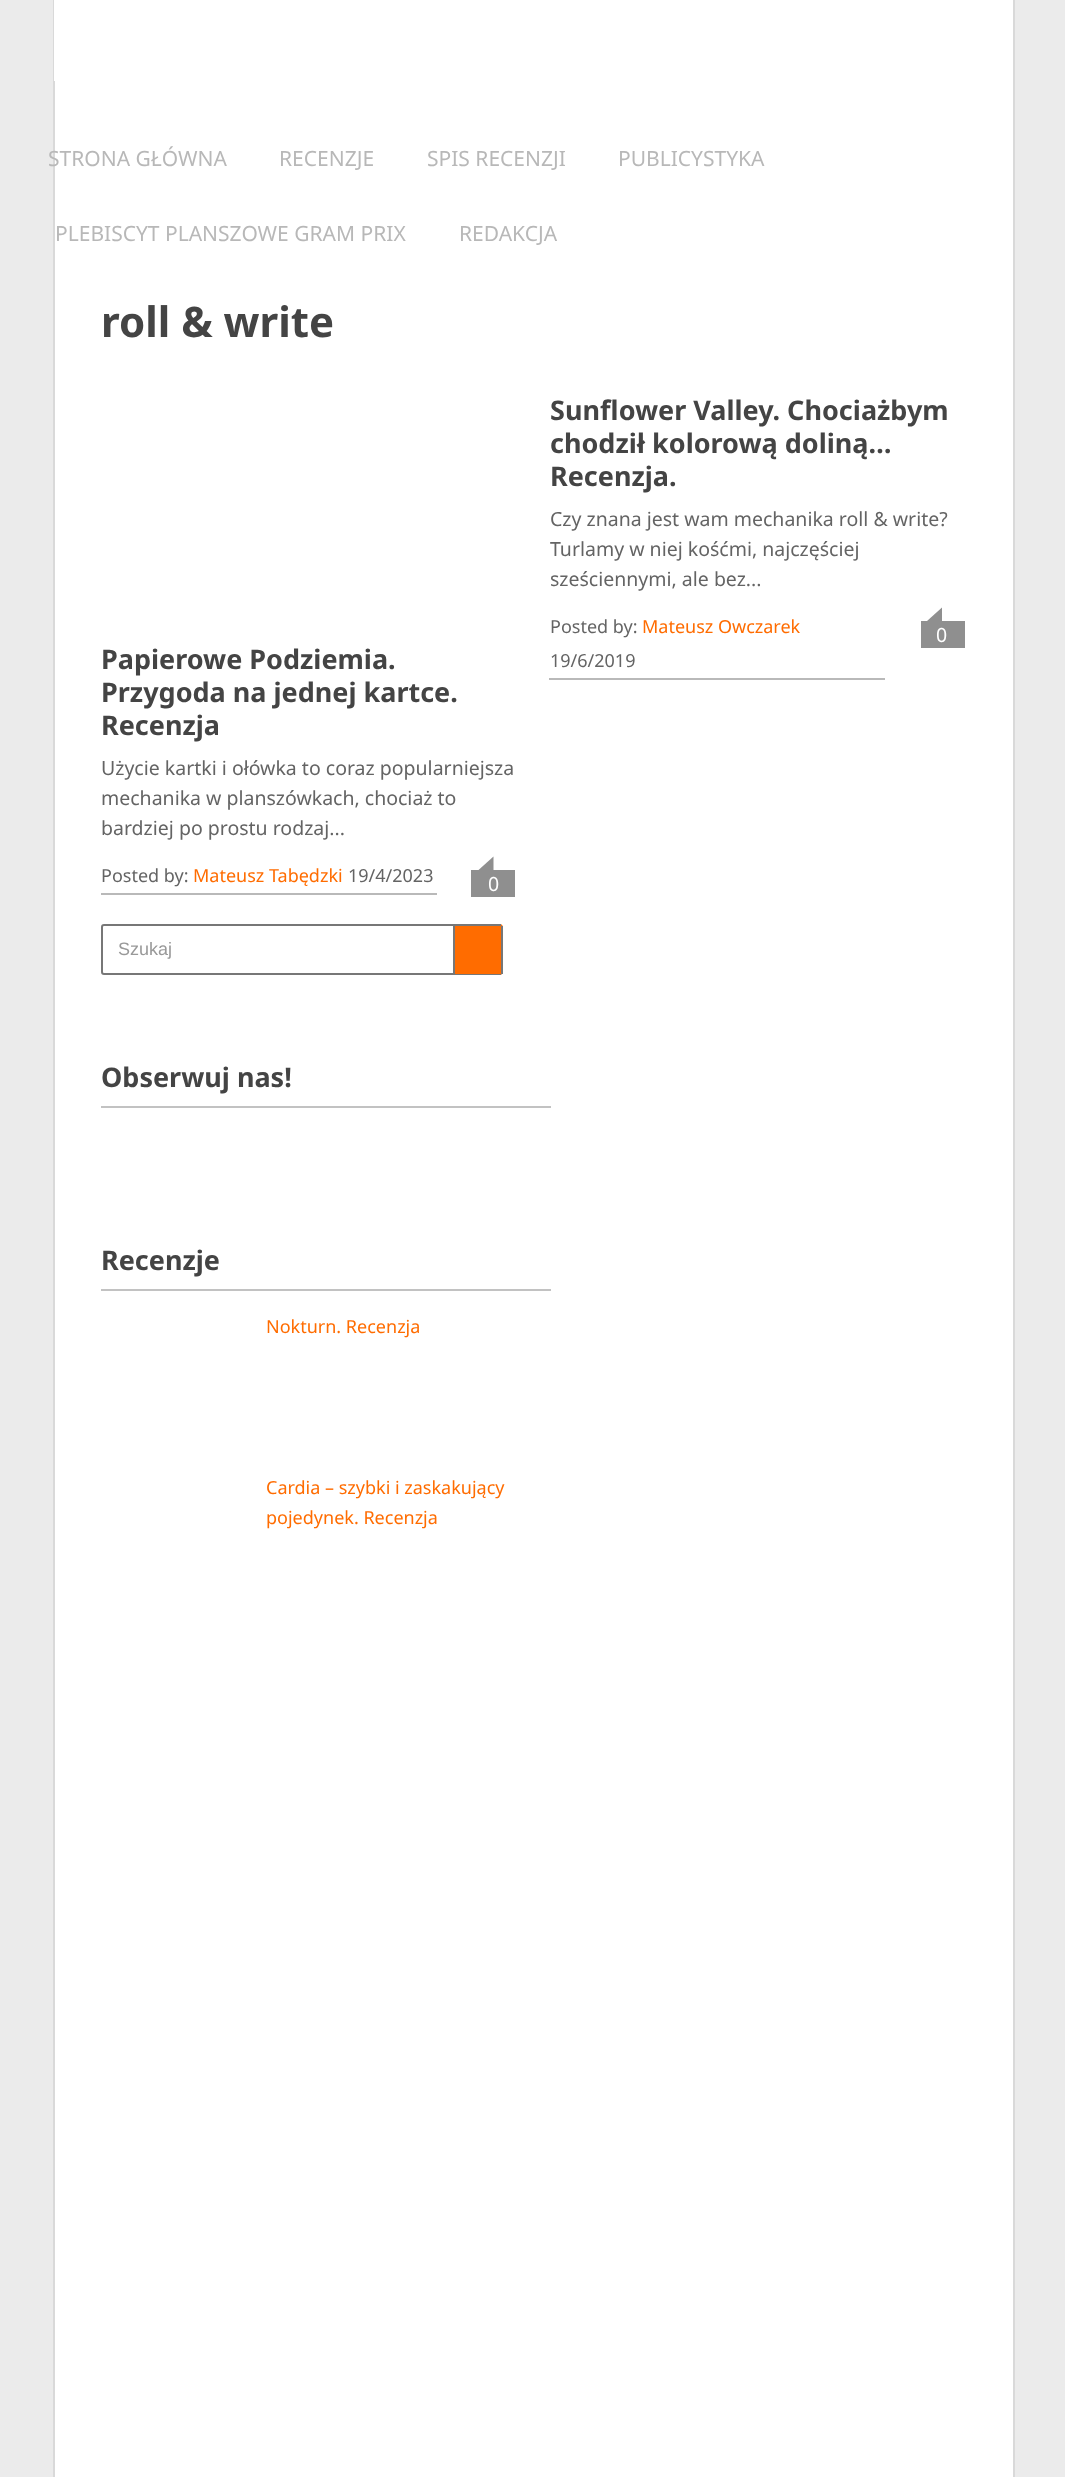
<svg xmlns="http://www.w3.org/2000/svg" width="1065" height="2477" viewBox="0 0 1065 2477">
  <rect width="100%" height="100%" fill="rgb(235,235,235)"/>
  <rect x="53" y="0" width="2" height="2477" fill="rgb(217,217,217)"/>
  <rect x="54" y="0" width="959" height="81" fill="rgb(255,255,255)"/>
  <rect x="55" y="81" width="958" height="2396" fill="rgb(255,255,255)"/>
  <g font-family="Noto Sans" font-size="21" fill="rgb(184,184,184)">
    <text x="48" y="166">STRONA GŁÓWNA</text>
    <text x="279" y="166">RECENZJE</text>
    <text x="427" y="166">SPIS RECENZJI</text>
    <text x="618" y="166">PUBLICYSTYKA</text>
    <text x="55" y="241">PLEBISCYT PLANSZOWE GRAM PRIX</text>
    <text x="459" y="241">REDAKCJA</text>
  </g>
  <rect x="1013" y="0" width="2" height="2477" fill="rgb(217,217,217)"/>
  <text x="101" y="337" font-family="Noto Sans" font-size="42" font-weight="bold" fill="rgb(68,68,68)">roll &amp; write</text>
  <g font-family="Noto Sans" font-size="27" font-weight="bold" fill="rgb(68,68,68)">
    <text>
      <tspan x="550" y="420">Sunflower Valley. Chociażbym</tspan>
      <tspan x="550" y="453">chodził kolorową doliną…</tspan>
      <tspan x="550" y="486">Recenzja.</tspan>
    </text>
  </g>
  <g font-family="Noto Sans" font-size="19.5" fill="rgb(100,100,100)">
    <text>
      <tspan x="550" y="526">Czy znana jest wam mechanika roll &amp; write?</tspan>
      <tspan x="550" y="556">Turlamy w niej kośćmi, najczęściej</tspan>
      <tspan x="550" y="586">sześciennymi, ale bez...</tspan>
    </text>
  </g>
  <rect x="549" y="678" width="336" height="2" fill="rgb(185,185,185)"/>
  <text x="550" y="633" font-family="Noto Sans" font-size="18" fill="rgb(100,100,100)">Posted by:</text>
  <text x="642" y="633" font-family="Noto Sans" font-size="18" fill="rgb(255,108,0)">Mateusz Owczarek</text>
  <text x="550" y="667" font-family="Noto Sans" font-size="18" fill="rgb(100,100,100)">19/6/2019</text>
  <rect x="921" y="621" width="44" height="27" fill="rgb(143,143,143)"/>
  <path d="M942 621H927L942 607.5Z" fill="rgb(143,143,143)"/>
  <text x="936" y="642" font-family="Noto Sans" font-size="19.5" fill="rgb(255,255,255)">0</text>
  <g font-family="Noto Sans" font-size="27" font-weight="bold" fill="rgb(68,68,68)">
    <text>
      <tspan x="101" y="669">Papierowe Podziemia.</tspan>
      <tspan x="101" y="702">Przygoda na jednej kartce.</tspan>
      <tspan x="101" y="735">Recenzja</tspan>
    </text>
  </g>
  <g font-family="Noto Sans" font-size="19.5" fill="rgb(100,100,100)">
    <text>
      <tspan x="101" y="775">Użycie kartki i ołówka to coraz popularniejsza</tspan>
      <tspan x="101" y="805">mechanika w planszówkach, chociaż to</tspan>
      <tspan x="101" y="835">bardziej po prostu rodzaj...</tspan>
    </text>
  </g>
  <rect x="101" y="893" width="336" height="2" fill="rgb(185,185,185)"/>
  <text x="101" y="882" font-family="Noto Sans" font-size="18" fill="rgb(100,100,100)">Posted by:</text>
  <text x="193" y="882" font-family="Noto Sans" font-size="18" fill="rgb(255,108,0)">Mateusz Tabędzki</text>
  <text x="348" y="882" font-family="Noto Sans" font-size="18" fill="rgb(100,100,100)">19/4/2023</text>
  <rect x="471" y="870" width="44" height="27" fill="rgb(143,143,143)"/>
  <path d="M493.5 870H478.5L493.5 856.5Z" fill="rgb(143,143,143)"/>
  <text x="488" y="891" font-family="Noto Sans" font-size="19.5" fill="rgb(255,255,255)">0</text>
  <path d="M104 925H454V974H104C103 974 102 973 102 972V927C102 926 103 925 104 925Z" fill="none" stroke="rgb(119,119,119)" stroke-width="2"/>
  <text x="118" y="955" font-family="Liberation Sans" font-size="18" fill="rgb(153,153,153)">Szukaj</text>
  <path d="M455 924H500C501.5 924 503 925.5 503 927V972C503 973.5 501.5 975 500 975H455Z" fill="rgb(255,108,0)"/>
  <rect x="455" y="924" width="46" height="2" fill="rgb(119,119,119)"/>
  <rect x="501" y="926" width="2" height="48" fill="rgb(119,119,119)"/>
  <rect x="455" y="974" width="46" height="1" fill="rgb(119,119,119)"/>
  <rect x="101" y="1106" width="450" height="2" fill="rgb(194,194,194)"/>
  <text x="101" y="1087" font-family="Noto Sans" font-size="27" font-weight="bold" fill="rgb(68,68,68)">Obserwuj nas!</text>
  <rect x="101" y="1289" width="450" height="2" fill="rgb(194,194,194)"/>
  <text x="101" y="1270" font-family="Noto Sans" font-size="27" font-weight="bold" fill="rgb(68,68,68)">Recenzje</text>
  <g font-family="Noto Sans" font-size="18" fill="rgb(255,108,0)">
    <text x="266" y="1333">Nokturn. Recenzja</text>
    <text>
      <tspan x="266" y="1494">Cardia – szybki i zaskakujący</tspan>
      <tspan x="266" y="1524">pojedynek. Recenzja</tspan>
    </text>
  </g>
</svg>
